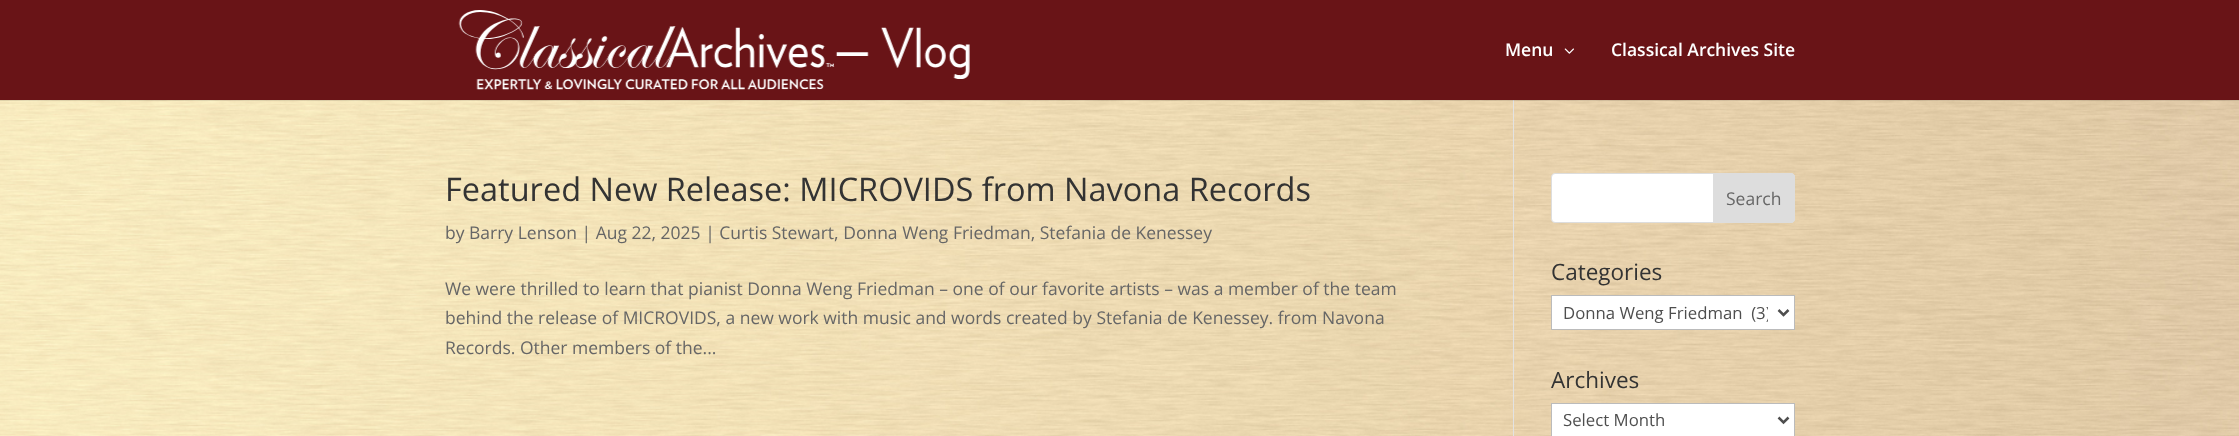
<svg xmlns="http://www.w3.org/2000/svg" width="2239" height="436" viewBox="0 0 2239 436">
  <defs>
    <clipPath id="clip1"><rect x="1564" y="300" width="204" height="25"/></clipPath>
  </defs>
  <rect width="100%" height="100%" fill="rgb(255,255,255)"/>
  <image x="0" y="100" width="2239" height="336" href="pic3.png"/>
  <rect x="1513" y="100" width="1" height="336" fill="rgb(226,226,226)"/>
  <rect x="0" y="100" width="2239" height="1" fill="rgba(0,0,0,0.1)"/>
  <rect x="0" y="0" width="2239" height="100" fill="rgb(105,20,23)"/>
  <image x="458" y="10" width="512" height="80" href="pic1.png"/>
  <text x="1505" y="56" font-family="Open Sans" font-size="17.5" font-weight="600" fill="rgb(255,255,255)">Menu</text>
  <image x="1564" y="48" width="10" height="6" href="pic2.png"/>
  <text x="1611" y="56" font-family="Open Sans" font-size="17.5" font-weight="600" fill="rgb(255,255,255)">Classical Archives Site</text>
  <text x="445" y="201" font-family="Open Sans" font-size="32.5" fill="rgb(51,51,51)">Featured New Release: MICROVIDS from Navona Records</text>
  <g font-family="Open Sans" font-size="17.5" fill="rgb(102,102,102)">
    <text x="445" y="239">by Barry Lenson | Aug 22, 2025 | Curtis Stewart, Donna Weng Friedman, Stefania de Kenessey</text>
    <text>
      <tspan x="445" y="295">We were thrilled to learn that pianist Donna Weng Friedman – one of our favorite artists – was a member of the team</tspan>
      <tspan x="445" y="324">behind the release of MICROVIDS, a new work with music and words created by Stefania de Kenessey. from Navona</tspan>
      <tspan x="445" y="354">Records. Other members of the...</tspan>
    </text>
  </g>
  <rect x="1551.5" y="173.5" width="243" height="49" rx="3.5" fill="rgb(255,255,255)" stroke="rgb(221,221,221)"/>
  <path d="M1713.5 173.5H1791C1793 173.5 1794.5 175 1794.5 177V219C1794.5 221 1793 222.5 1791 222.5H1713.5Z" fill="rgb(221,221,221)" stroke="rgb(221,221,221)"/>
  <text x="1726" y="205" font-family="Open Sans" font-size="17.5" fill="rgb(102,102,102)">Search</text>
  <text x="1551" y="280" font-family="Open Sans" font-size="22.5" fill="rgb(51,51,51)">Categories</text>
  <rect x="1551.5" y="295.5" width="243" height="34" fill="rgb(255,255,255)" stroke="rgb(187,187,187)"/>
  <path d="M1778.5 310L1783.5 315L1788.5 310" fill="none" stroke="rgb(78,78,78)" stroke-width="2.5"/>
  <g clip-path="url(#clip1)">
    <text x="1563" y="319" font-family="Open Sans" font-size="16.75" fill="rgb(78,78,78)" xml:space="preserve">Donna Weng Friedman  (3)</text>
  </g>
  <text x="1551" y="388" font-family="Open Sans" font-size="22.5" fill="rgb(51,51,51)">Archives</text>
  <rect x="1551.5" y="403.5" width="243" height="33" fill="rgb(255,255,255)" stroke="rgb(187,187,187)"/>
  <path d="M1778.5 417.5L1783.5 422.5L1788.5 417.5" fill="none" stroke="rgb(78,78,78)" stroke-width="2.5"/>
  <text x="1563" y="426" font-family="Open Sans" font-size="16.75" fill="rgb(78,78,78)">Select Month</text>
</svg>
